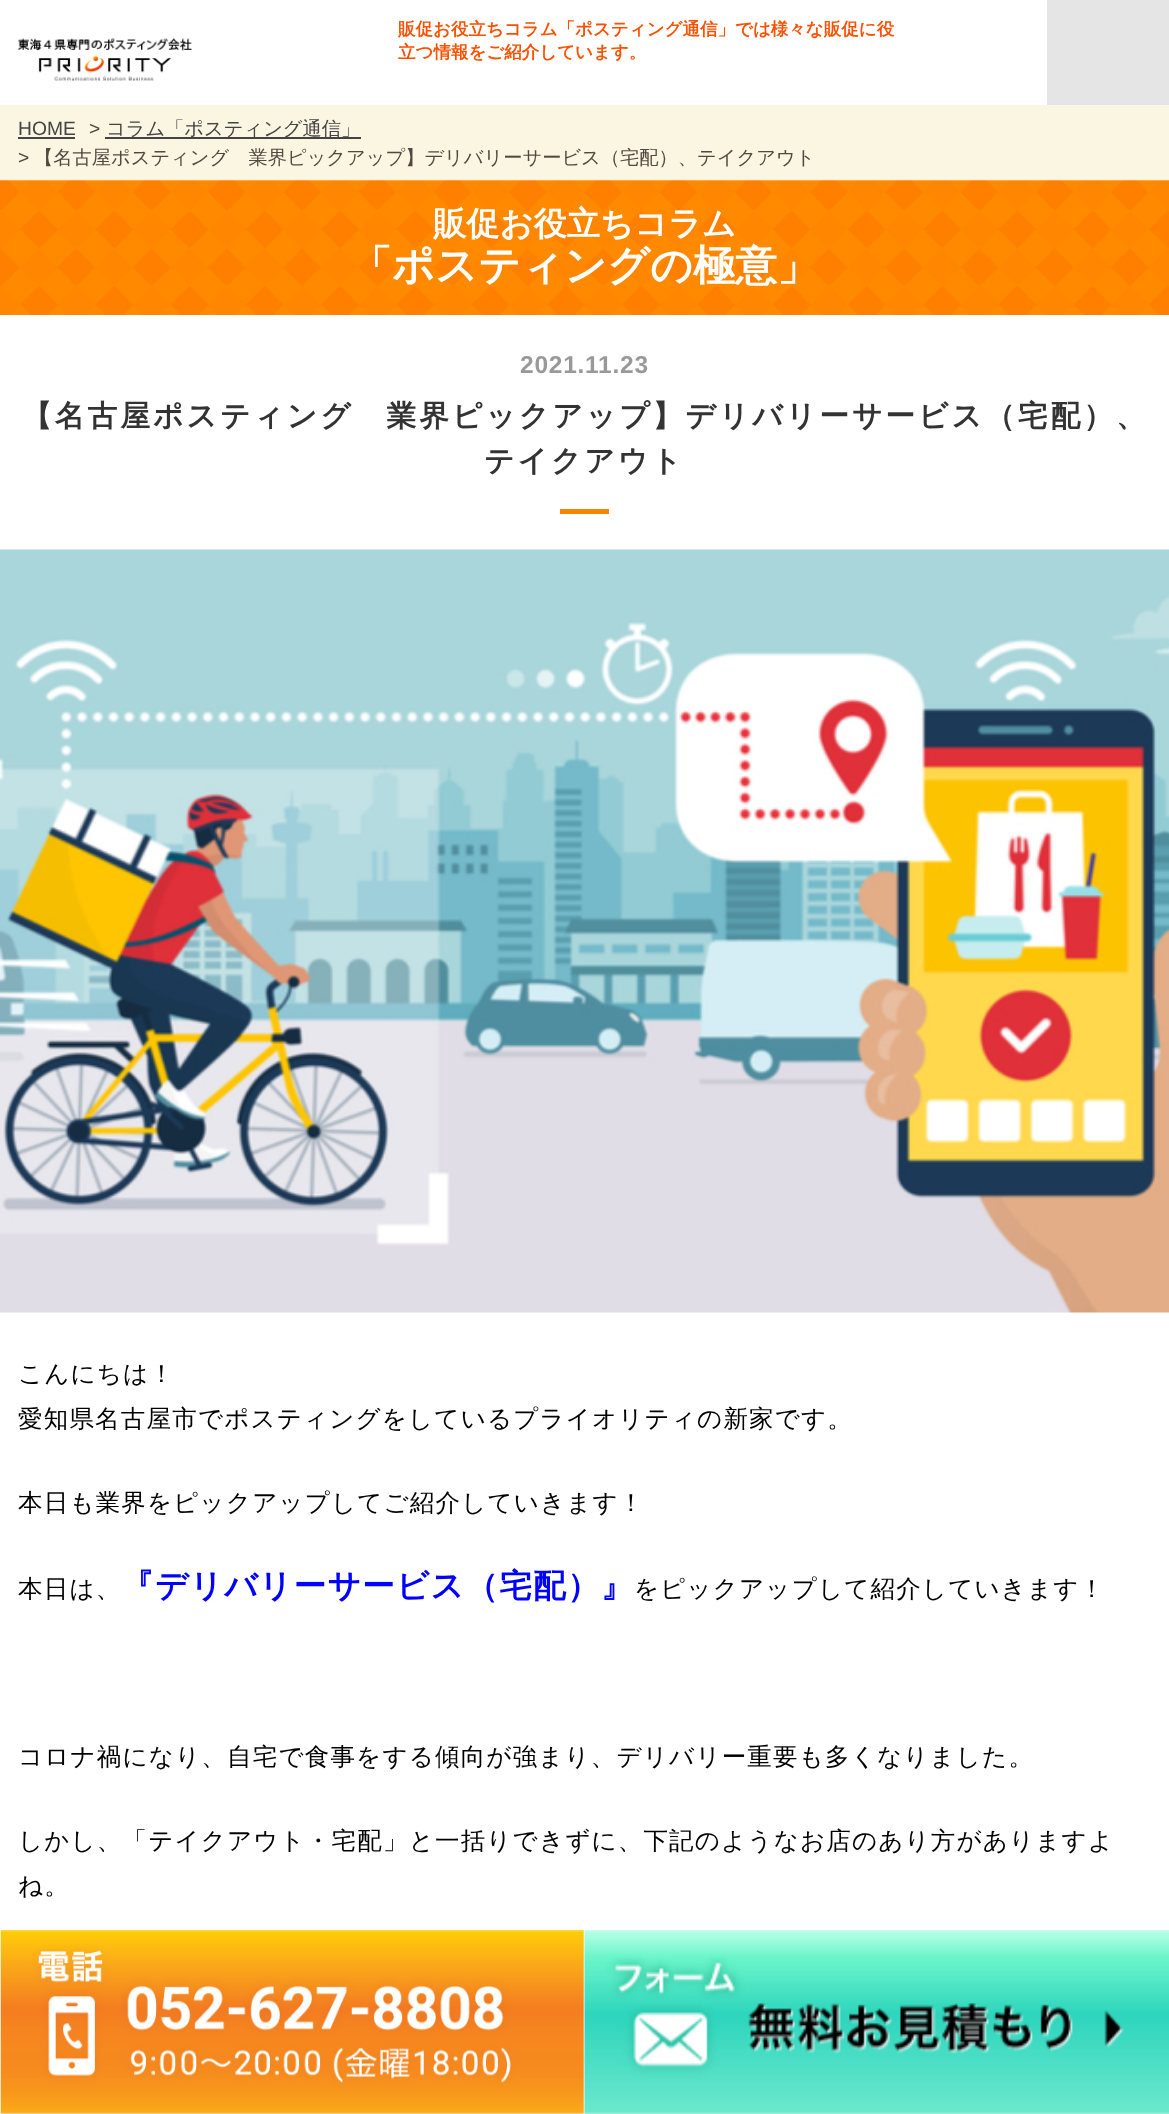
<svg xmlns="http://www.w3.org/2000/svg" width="1169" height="2114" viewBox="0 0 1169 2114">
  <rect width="100%" height="100%" fill="rgb(255,255,255)"/>
  <image x="17" y="38" width="175" height="43" href="pic1.png"/>
  <g font-family="WenQuanYi Zen Hei" font-size="17.5" font-weight="bold" fill="rgb(254,80,0)">
    <text>
      <tspan x="398" y="35">販促お役立ちコラム「ポスティング通信」では様々な販促に役</tspan>
      <tspan x="398" y="58">立つ情報をご紹介しています。</tspan>
    </text>
  </g>
  <rect x="1047" y="0" width="122" height="105" fill="rgb(229,229,229)"/>
  <rect x="0" y="105" width="1169" height="75" fill="rgb(250,246,225)"/>
  <text x="18" y="135" font-family="Liberation Sans" font-size="19.25" fill="rgb(68,68,68)">HOME</text>
  <rect x="18" y="137" width="57" height="2" fill="rgb(68,68,68)"/>
  <text x="89" y="135" font-family="Liberation Sans" font-size="19.25" fill="rgb(83,71,65)">&gt;</text>
  <rect x="105" y="137" width="256" height="2" fill="rgb(68,68,68)"/>
  <text x="106" y="135" font-family="WenQuanYi Zen Hei" font-size="19.25" font-weight="500" fill="rgb(68,68,68)">コラム「ポスティング通信」</text>
  <text x="18" y="164" font-family="Liberation Sans" font-size="19.25" fill="rgb(83,71,65)">&gt;</text>
  <text x="34" y="164" font-family="WenQuanYi Zen Hei" font-size="19.25" font-weight="500" fill="rgb(83,71,65)">【名古屋ポスティング　業界ピックアップ】デリバリーサービス（宅配）、テイクアウト</text>
  <image x="0" y="180" width="1169" height="135" href="pic2.png"/>
  <text x="433" y="235" font-family="WenQuanYi Zen Hei" font-size="33.25" font-weight="bold" fill="rgb(255,255,255)">販促お役立ちコラム</text>
  <text x="350" y="280" font-family="WenQuanYi Zen Hei" font-size="42" font-weight="bold" fill="rgb(255,255,255)">「ポスティングの極意」</text>
  <text x="520" y="373" font-family="Liberation Sans" font-size="24.5" font-weight="bold" letter-spacing="0.75" fill="rgb(153,153,153)">2021.11.23</text>
  <g font-family="WenQuanYi Zen Hei" font-size="29.75" font-weight="bold" letter-spacing="3" fill="rgb(51,51,51)">
    <text x="22" y="426">【名古屋ポスティング　業界ピックアップ】デリバリーサービス（宅配）、</text>
    <text x="484" y="471">テイクアウト</text>
  </g>
  <rect x="560" y="509" width="49" height="5" fill="rgb(247,133,0)"/>
  <image x="0" y="549" width="1169" height="764" href="pic3.png"/>
  <g font-family="WenQuanYi Zen Hei" font-size="24.5" font-weight="500" letter-spacing="1.2" fill="rgb(0,0,0)">
    <text>
      <tspan x="18" y="1382">こんにちは！</tspan>
      <tspan x="18" y="1427">愛知県名古屋市でポスティングをしているプライオリティの新家です。</tspan>
    </text>
    <text x="18" y="1511">本日も業界をピックアップしてご紹介していきます！</text>
    <text x="18" y="1597">本日は、</text>
  </g>
  <text x="121" y="1597" font-family="WenQuanYi Zen Hei" font-size="32.7" font-weight="bold" letter-spacing="1.2" fill="rgb(0,0,255)">『デリバリーサービス（宅配）』</text>
  <g font-family="WenQuanYi Zen Hei" font-size="24.5" font-weight="500" letter-spacing="1.2" fill="rgb(0,0,0)">
    <text x="634" y="1597">をピックアップして紹介していきます！</text>
    <text x="18" y="1765">コロナ禍になり、自宅で食事をする傾向が強まり、デリバリー重要も多くなりました。</text>
    <text>
      <tspan x="18" y="1849">しかし、「テイクアウト・宅配」と一括りできずに、下記のようなお店のあり方がありますよ</tspan>
      <tspan x="18" y="1894">ね。</tspan>
    </text>
  </g>
  <image x="0" y="1930" width="584" height="184" href="pic4.png"/>
  <image x="584" y="1930" width="585" height="184" href="pic5.png"/>
</svg>
